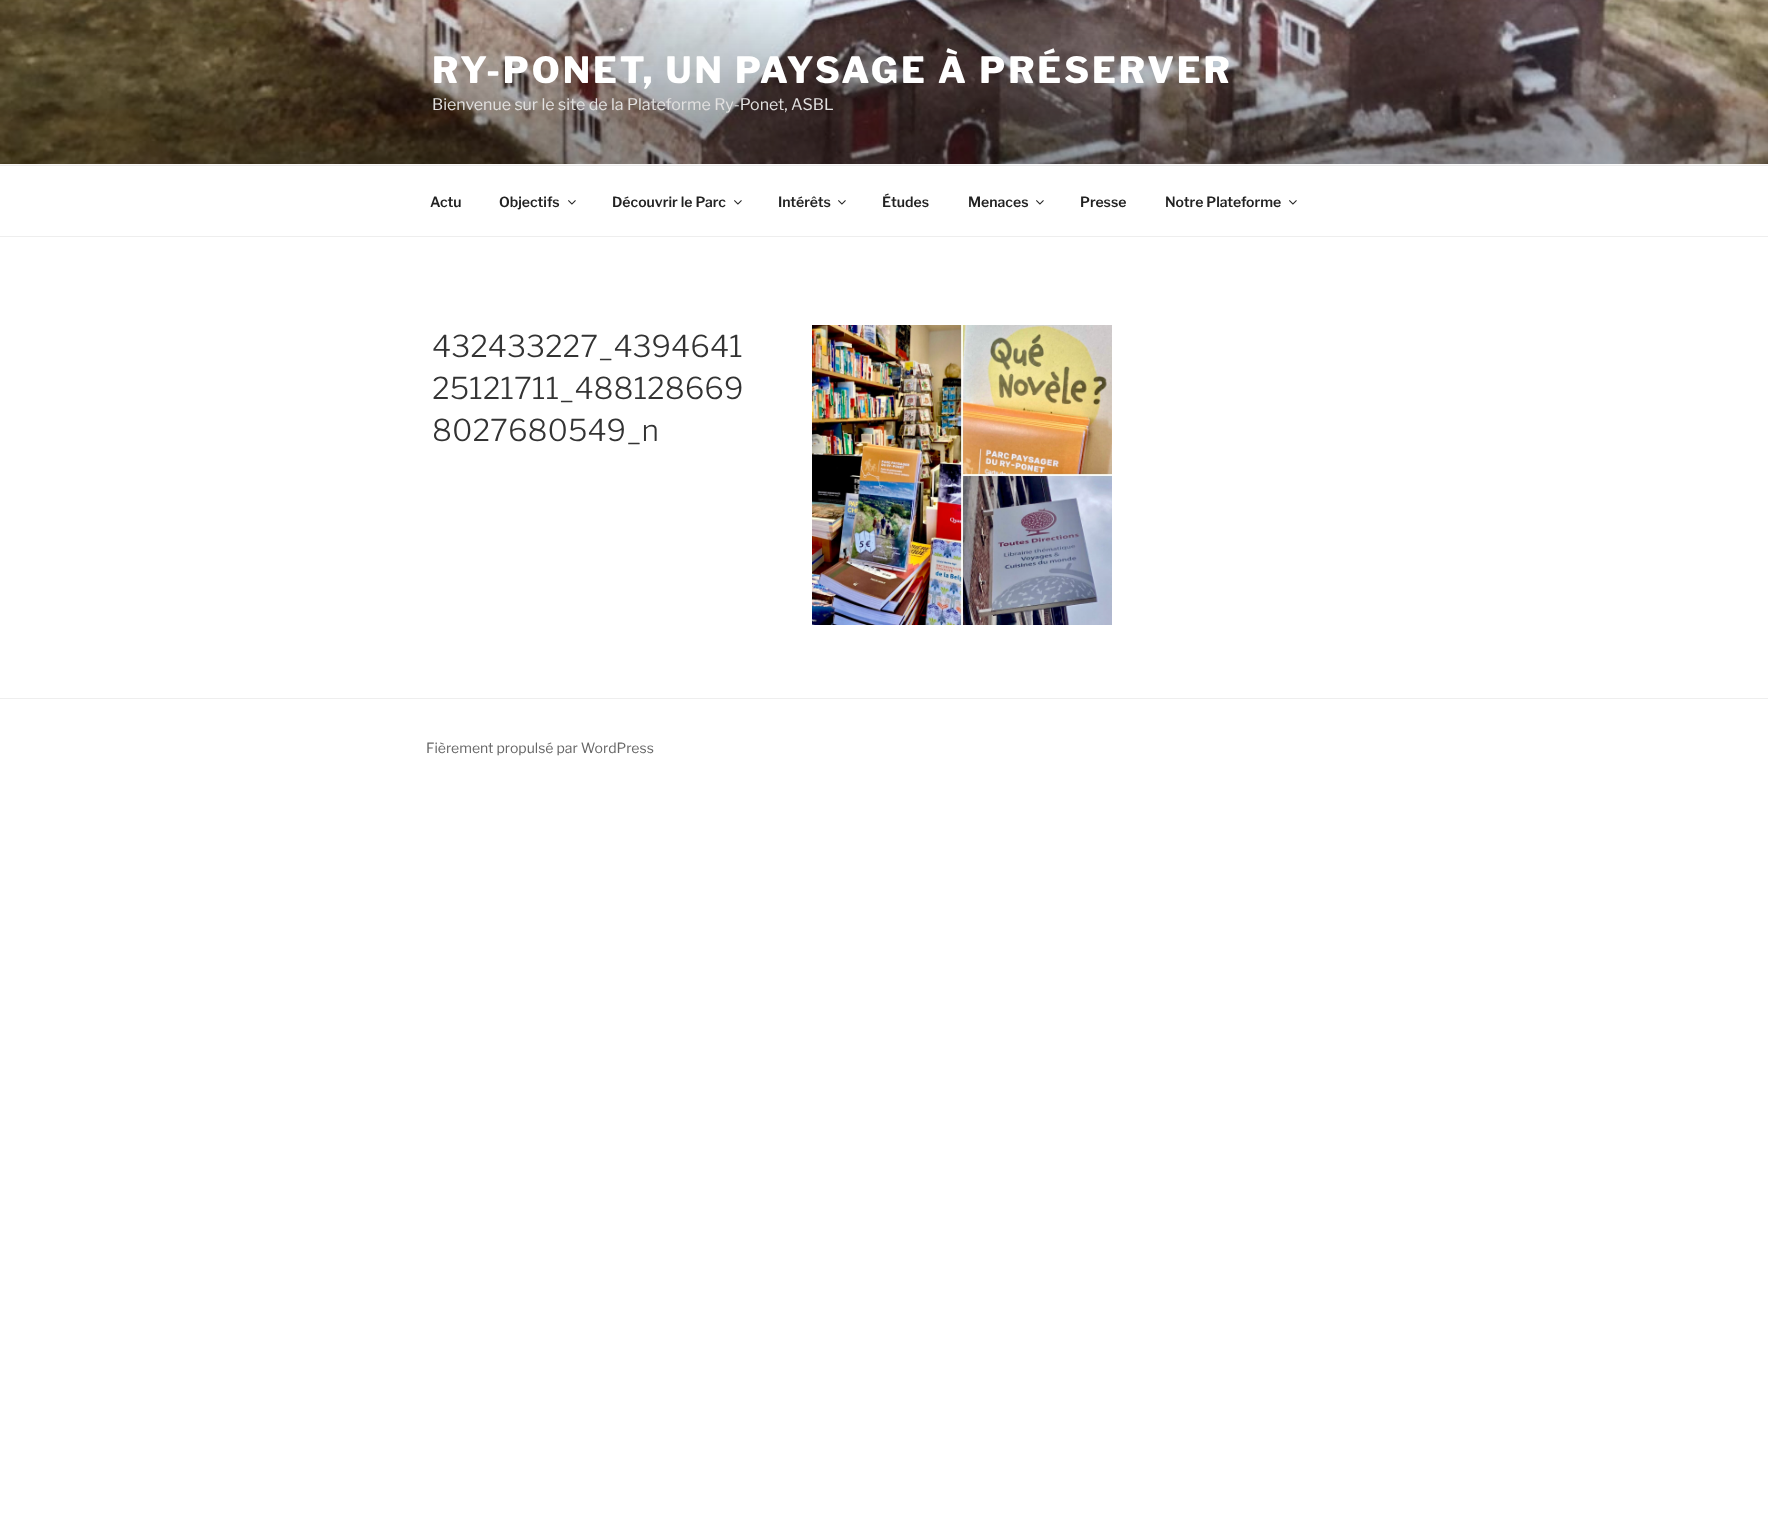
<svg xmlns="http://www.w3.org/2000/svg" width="1768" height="1532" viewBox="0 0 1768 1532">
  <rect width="100%" height="100%" fill="rgb(255,255,255)"/>
  <rect x="0" y="164" width="1768" height="1" fill="rgb(250,250,250)"/>
  <image x="0" y="0" width="1768" height="164" href="pic1.png"/>
  <text x="432" y="83" font-family="'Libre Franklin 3'" font-size="36" font-weight="100" letter-spacing="2.9" fill="rgb(255,255,255)">RY-PONET, UN PAYSAGE À PRÉSERVER</text>
  <text x="432" y="110" font-family="'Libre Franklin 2'" font-size="16" font-weight="100" fill="rgb(226,225,224)">Bienvenue sur le site de la Plateforme Ry-Ponet, ASBL</text>
  <rect x="0" y="165" width="1768" height="1" fill="rgb(238,238,238)"/>
  <rect x="0" y="236" width="1768" height="1" fill="rgb(238,238,238)"/>
  <g font-family="'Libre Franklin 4'" font-size="14" font-weight="100" fill="rgb(34,34,34)">
    <text x="430" y="207">Actu</text>
    <text x="499" y="207">Objectifs</text>
  </g>
  <image x="568" y="200" width="8" height="5" href="pic2.png"/>
  <text x="612" y="207" font-family="'Libre Franklin 4'" font-size="14" font-weight="100" fill="rgb(34,34,34)">Découvrir le Parc</text>
  <image x="734" y="200" width="8" height="5" href="pic2.png"/>
  <text x="778" y="207" font-family="'Libre Franklin 4'" font-size="14" font-weight="100" fill="rgb(34,34,34)">Intérêts</text>
  <image x="838" y="200" width="8" height="5" href="pic2.png"/>
  <g font-family="'Libre Franklin 4'" font-size="14" font-weight="100" fill="rgb(34,34,34)">
    <text x="882" y="207">Études</text>
    <text x="968" y="207">Menaces</text>
  </g>
  <image x="1036" y="200" width="8" height="5" href="pic2.png"/>
  <g font-family="'Libre Franklin 4'" font-size="14" font-weight="100" fill="rgb(34,34,34)">
    <text x="1080" y="207">Presse</text>
    <text x="1165" y="207">Notre Plateforme</text>
  </g>
  <image x="1289" y="200" width="8" height="5" href="pic2.png"/>
  <g font-family="Libre Franklin" font-size="30" font-weight="100" fill="rgb(51,51,51)">
    <text>
      <tspan x="432" y="357">432433227_4394641</tspan>
      <tspan x="432" y="399">25121711_488128669</tspan>
      <tspan x="432" y="441">8027680549_n</tspan>
    </text>
  </g>
  <image x="812" y="325" width="300" height="300" href="pic3.png"/>
  <rect x="0" y="698" width="1768" height="1" fill="rgb(238,238,238)"/>
  <text x="426" y="753" font-family="'Libre Franklin 2'" font-size="14" font-weight="100" fill="rgb(102,102,102)">Fièrement propulsé par WordPress</text>
</svg>
